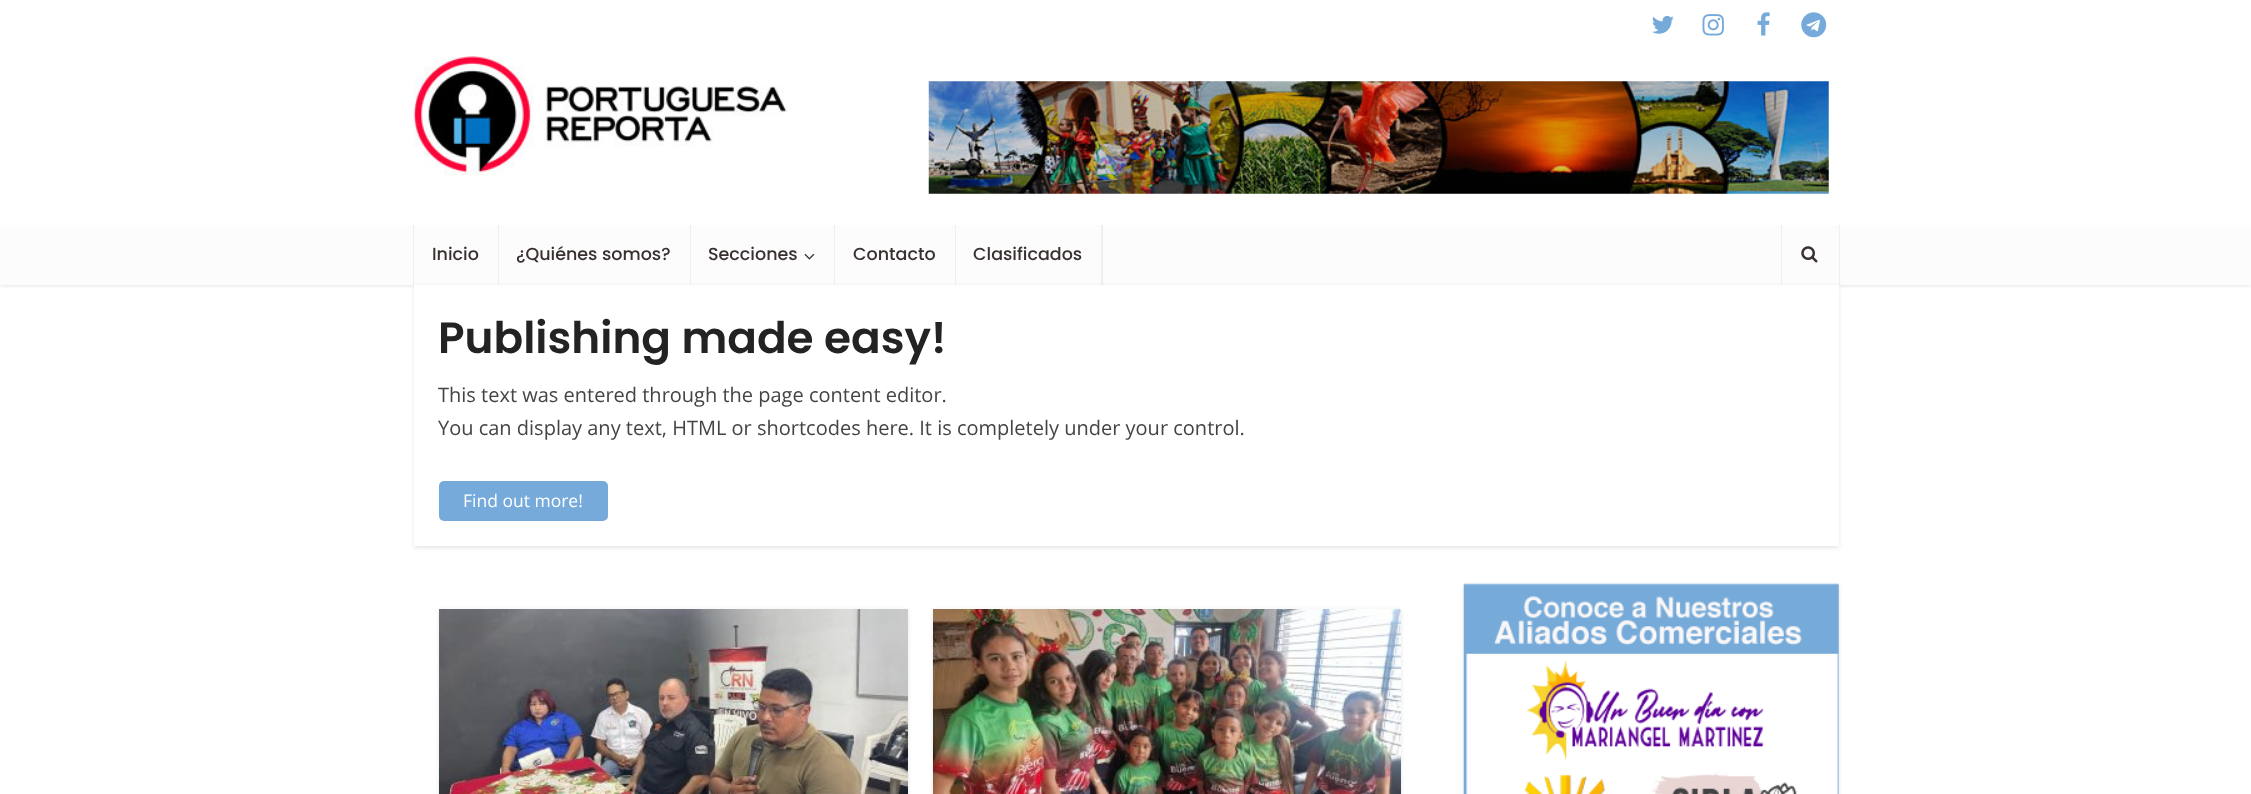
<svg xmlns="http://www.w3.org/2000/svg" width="2251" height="794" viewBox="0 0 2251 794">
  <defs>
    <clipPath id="clip1"><rect x="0" y="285" width="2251" height="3"/></clipPath>
  </defs>
  <rect width="100%" height="100%" fill="rgb(255,255,255)"/>
  <g clip-path="url(#clip1)">
    <rect x="0" y="1" width="2251" height="285" fill="rgba(0,0,0,0.1)" filter="blur(2px)"/>
  </g>
  <image x="1652" y="15" width="22" height="19" href="pic1.png"/>
  <image x="1702" y="14" width="22" height="22" href="pic2.png"/>
  <image x="1757" y="12" width="13" height="24" href="pic3.png"/>
  <image x="1801" y="12" width="26" height="26" href="pic4.png"/>
  <image x="413" y="56" width="374" height="119" href="pic5.png"/>
  <image x="928" y="81" width="901" height="113" href="pic6.png"/>
  <rect x="0" y="225" width="2251" height="60" fill="rgb(252,252,252)"/>
  <rect x="414" y="286" width="1425" height="262" fill="rgba(0,0,0,0.1)" filter="blur(2px)"/>
  <rect x="498" y="225" width="1" height="60" fill="rgba(0,0,0,0.05)"/>
  <rect x="413" y="225" width="1" height="60" fill="rgb(239,239,239)"/>
  <text x="432" y="260" font-family="Poppins" font-size="17.5" font-weight="500" fill="rgb(57,48,48)">Inicio</text>
  <rect x="690" y="225" width="1" height="60" fill="rgba(0,0,0,0.05)"/>
  <text x="516" y="260" font-family="Poppins" font-size="17.5" font-weight="500" fill="rgb(57,48,48)">¿Quiénes somos?</text>
  <rect x="834" y="225" width="1" height="60" fill="rgba(0,0,0,0.05)"/>
  <text x="708" y="260" font-family="Poppins" font-size="17.5" font-weight="500" fill="rgb(57,48,48)">Secciones</text>
  <image x="804" y="253" width="11" height="7" href="pic7.png"/>
  <rect x="955" y="225" width="1" height="60" fill="rgba(0,0,0,0.05)"/>
  <text x="853" y="260" font-family="Poppins" font-size="17.5" font-weight="500" fill="rgb(57,48,48)">Contacto</text>
  <rect x="1101" y="225" width="2" height="60" fill="rgba(0,0,0,0.05)"/>
  <text x="973" y="260" font-family="Poppins" font-size="17.5" font-weight="500" fill="rgb(57,48,48)">Clasificados</text>
  <rect x="1839" y="225" width="1" height="60" fill="rgb(239,239,239)"/>
  <rect x="1781" y="225" width="1" height="60" fill="rgba(0,0,0,0.05)"/>
  <image x="1801" y="246" width="17" height="17" href="pic8.png"/>
  <rect x="414" y="285" width="1425" height="261" fill="rgb(255,255,255)"/>
  <text x="438" y="353" font-family="Poppins" font-size="43.75" font-weight="600" fill="rgb(35,35,35)">Publishing made easy!</text>
  <g font-family="Open Sans" font-size="20" fill="rgb(68,68,68)">
    <text>
      <tspan x="438" y="402">This text was entered through the page content editor.</tspan>
      <tspan x="438" y="435">You can display any text, HTML or shortcodes here. It is completely under your control.</tspan>
    </text>
  </g>
  <rect x="439" y="481" width="169" height="40" rx="5" fill="rgb(118,170,219)"/>
  <text x="463" y="507" font-family="Open Sans" font-size="17.5" fill="rgb(255,255,255)">Find out more!</text>
  <rect x="439" y="610" width="469" height="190" fill="rgba(0,0,0,0.1)" filter="blur(2px)"/>
  <image x="439" y="609" width="469" height="185" href="pic9.png"/>
  <rect x="933" y="610" width="468" height="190" fill="rgba(0,0,0,0.1)" filter="blur(2px)"/>
  <image x="933" y="609" width="468" height="185" href="pic10.png"/>
  <rect x="1464" y="585" width="375" height="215" fill="rgba(0,0,0,0.1)" filter="blur(2px)"/>
  <image x="1463" y="583" width="376" height="211" href="pic11.png"/>
</svg>
